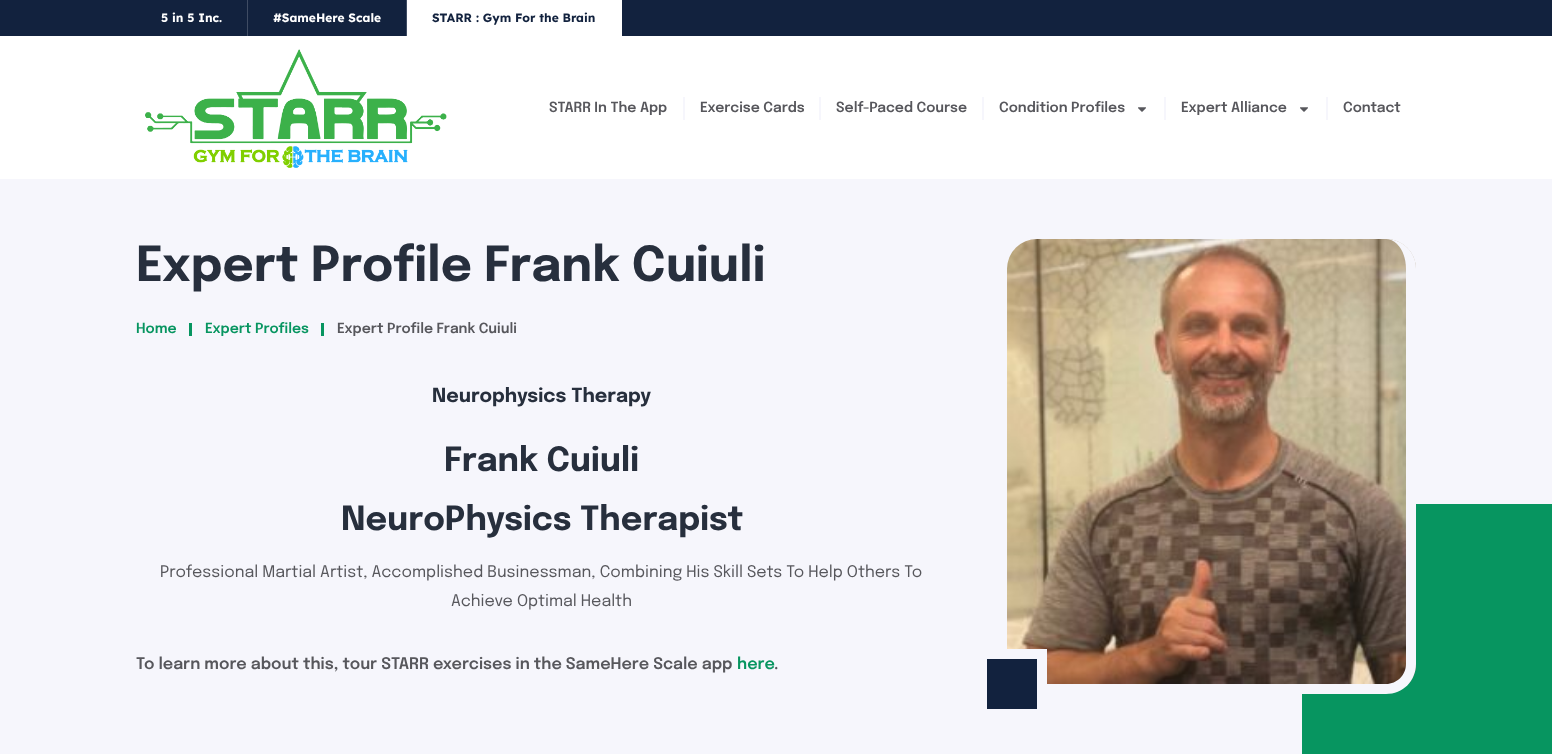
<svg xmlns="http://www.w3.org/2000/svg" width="1552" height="755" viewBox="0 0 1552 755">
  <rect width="100%" height="100%" fill="rgb(255,255,255)"/>
  <rect x="0" y="0" width="1552" height="36" fill="rgb(18,34,62)"/>
  <rect x="247" y="0" width="1" height="36" fill="rgb(63,76,99)"/>
  <text x="161" y="22" font-family="Lexend" font-size="12" font-weight="bold" fill="rgb(255,255,255)">5 in 5 Inc.</text>
  <rect x="406" y="0" width="1" height="36" fill="rgb(63,76,99)"/>
  <text x="273" y="22" font-family="Lexend" font-size="12" font-weight="bold" fill="rgb(255,255,255)">#SameHere Scale</text>
  <rect x="407" y="0" width="215" height="36" fill="rgb(255,255,255)"/>
  <text x="432" y="22" font-family="Lexend" font-size="12" font-weight="bold" fill="rgb(18,34,62)">STARR : Gym For the Brain</text>
  <image x="145" y="49" width="302" height="119" href="pic1.png"/>
  <text x="549" y="112" font-family="Epilogue" font-size="14" font-weight="600" fill="rgb(87,87,92)">STARR In The App</text>
  <rect x="683" y="97" width="2" height="23" fill="rgb(246,246,252)"/>
  <text x="700" y="112" font-family="Epilogue" font-size="14" font-weight="600" fill="rgb(87,87,92)">Exercise Cards</text>
  <rect x="819" y="97" width="2" height="23" fill="rgb(246,246,252)"/>
  <text x="836" y="112" font-family="Epilogue" font-size="14" font-weight="600" fill="rgb(87,87,92)">Self-Paced Course</text>
  <rect x="982" y="97" width="2" height="23" fill="rgb(246,246,252)"/>
  <text x="999" y="112" font-family="Epilogue" font-size="14" font-weight="600" fill="rgb(87,87,92)">Condition Profiles</text>
  <image x="1138" y="107" width="8" height="5" href="pic2.png"/>
  <rect x="1164" y="97" width="2" height="23" fill="rgb(246,246,252)"/>
  <text x="1181" y="112" font-family="Epilogue" font-size="14" font-weight="600" fill="rgb(87,87,92)">Expert Alliance</text>
  <image x="1300" y="107" width="8" height="5" href="pic2.png"/>
  <rect x="1326" y="97" width="2" height="23" fill="rgb(246,246,252)"/>
  <text x="1343" y="112" font-family="Epilogue" font-size="14" font-weight="600" fill="rgb(87,87,92)">Contact</text>
  <rect x="0" y="179" width="1552" height="575" fill="rgb(246,246,252)"/>
  <text x="136" y="281" font-family="Epilogue" font-size="48" font-weight="bold" fill="rgb(39,47,61)">Expert Profile Frank Cuiuli</text>
  <text x="136" y="333" font-family="Epilogue" font-size="14" font-weight="600" fill="rgb(7,149,96)">Home</text>
  <rect x="189" y="323" width="3" height="13" fill="rgb(7,149,96)"/>
  <text x="205" y="333" font-family="Epilogue" font-size="14" font-weight="600" fill="rgb(7,149,96)">Expert Profiles</text>
  <rect x="321" y="323" width="3" height="13" fill="rgb(7,149,96)"/>
  <text x="337" y="333" font-family="Epilogue" font-size="14" font-weight="600" fill="rgb(87,87,92)">Expert Profile Frank Cuiuli</text>
  <text x="432" y="402" font-family="Epilogue" font-size="19.25" font-weight="bold" fill="rgb(39,47,61)">Neurophysics Therapy</text>
  <g font-family="Epilogue" font-size="33.25" font-weight="bold" fill="rgb(39,47,61)">
    <text x="444" y="471">Frank Cuiuli</text>
    <text x="341" y="530">NeuroPhysics Therapist</text>
  </g>
  <g font-family="Epilogue" font-size="16" fill="rgb(87,87,92)">
    <text x="160" y="577">Professional Martial Artist, Accomplished Businessman, Combining His Skill Sets To Help Others To</text>
    <text x="451" y="606">Achieve Optimal Health</text>
  </g>
  <text x="136" y="669" font-family="Epilogue" font-size="16" font-weight="600" fill="rgb(87,87,92)">To learn more about this, tour STARR exercises in the SameHere Scale app</text>
  <text x="737" y="669" font-family="Epilogue" font-size="16" font-weight="600" fill="rgb(7,149,96)">here</text>
  <text x="774" y="669" font-family="Epilogue" font-size="16" font-weight="600" fill="rgb(87,87,92)">.</text>
  <rect x="1302" y="504" width="250" height="250" fill="rgb(7,149,96)"/>
  <image x="1007" y="239" width="409" height="445" href="pic3.png"/>
  <path d="M1037 239H1386C1403 239 1416 252 1416 269V664C1416 681 1403 694 1386 694H1007V269C1007 252 1020 239 1037 239ZM1037 239H1386C1397 239 1406 252 1406 269V664C1406 675 1397 684 1386 684H1007V269C1007 252 1020 239 1037 239Z" fill="rgb(246,246,252)" fill-rule="evenodd"/>
  <rect x="987" y="659" width="50" height="50" fill="rgb(18,34,62)"/>
  <rect x="1007" y="649" width="30" height="10" fill="rgb(246,246,252)"/>
  <rect x="1037" y="649" width="10" height="35" fill="rgb(246,246,252)"/>
</svg>
